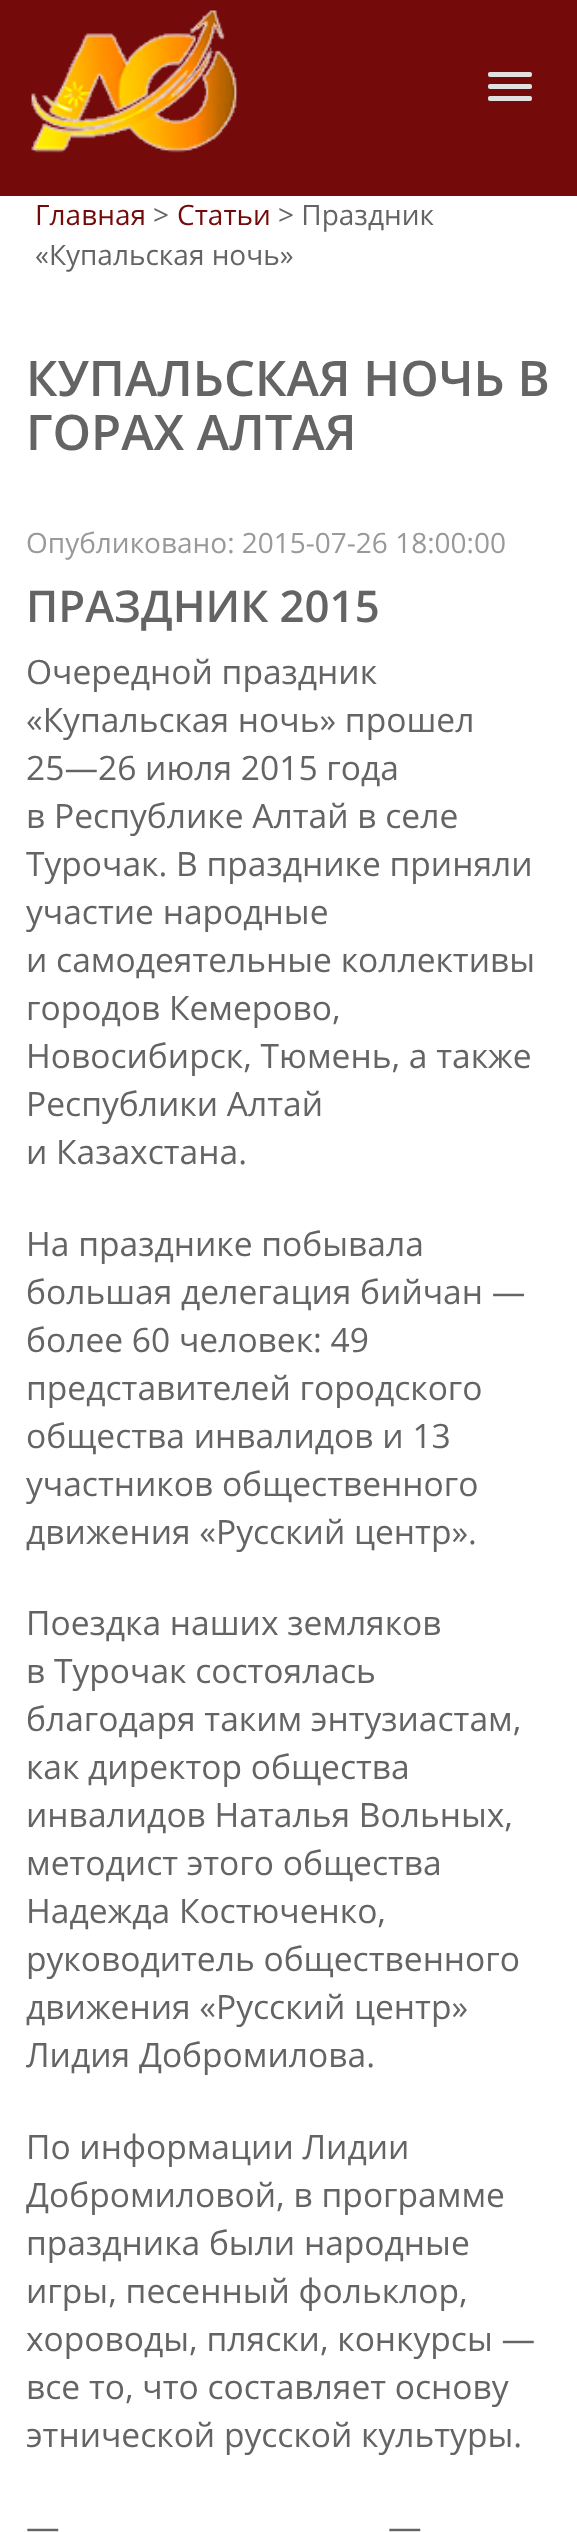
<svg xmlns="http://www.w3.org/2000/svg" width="577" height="2532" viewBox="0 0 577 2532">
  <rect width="100%" height="100%" fill="rgb(255,255,255)"/>
  <rect x="0" y="0" width="577" height="196" fill="rgb(117,10,10)"/>
  <image x="31" y="10" width="207" height="143" href="pic1.png"/>
  <rect x="488" y="72" width="44" height="5" rx="2" fill="rgb(225,225,225)"/>
  <rect x="488" y="84" width="44" height="5" rx="2" fill="rgb(225,225,225)"/>
  <rect x="488" y="96" width="44" height="5" rx="2" fill="rgb(225,225,225)"/>
  <text x="35" y="225" font-family="Open Sans" font-size="28" fill="rgb(117,10,10)">Главная</text>
  <text x="153" y="225" font-family="Open Sans" font-size="28" fill="rgb(100,100,100)">&gt;</text>
  <text x="177" y="225" font-family="Open Sans" font-size="28" fill="rgb(117,10,10)">Статьи</text>
  <g font-family="Open Sans" font-size="28" fill="rgb(100,100,100)">
    <text x="278" y="225">&gt; Праздник</text>
    <text x="35" y="265">«Купальская ночь»</text>
  </g>
  <g font-family="Open Sans" font-size="49" font-weight="600" fill="rgb(100,100,100)">
    <text>
      <tspan x="26" y="396">КУПАЛЬСКАЯ НОЧЬ В</tspan>
      <tspan x="26" y="450">ГОРАХ АЛТАЯ</tspan>
    </text>
  </g>
  <text x="26" y="553" font-family="Open Sans" font-size="28" fill="rgb(153,153,153)">Опубликовано: 2015-07-26 18:00:00</text>
  <text x="26" y="622" font-family="Open Sans" font-size="43.75" font-weight="600" fill="rgb(100,100,100)">ПРАЗДНИК 2015</text>
  <g font-family="Open Sans" font-size="33.6" fill="rgb(100,100,100)">
    <text>
      <tspan x="26" y="684">Очередной праздник</tspan>
      <tspan x="26" y="732">«Купальская ночь» прошел</tspan>
      <tspan x="26" y="780">25—26 июля 2015 года</tspan>
      <tspan x="26" y="828">в Республике Алтай в селе</tspan>
      <tspan x="26" y="876">Турочак. В празднике приняли</tspan>
      <tspan x="26" y="924">участие народные</tspan>
      <tspan x="26" y="972">и самодеятельные коллективы</tspan>
      <tspan x="26" y="1020">городов Кемерово,</tspan>
      <tspan x="26" y="1068">Новосибирск, Тюмень, а также</tspan>
      <tspan x="26" y="1116">Республики Алтай</tspan>
      <tspan x="26" y="1164">и Казахстана.</tspan>
    </text>
    <text>
      <tspan x="26" y="1256">На празднике побывала</tspan>
      <tspan x="26" y="1304">большая делегация бийчан —</tspan>
      <tspan x="26" y="1352">более 60 человек: 49</tspan>
      <tspan x="26" y="1400">представителей городского</tspan>
      <tspan x="26" y="1448">общества инвалидов и 13</tspan>
      <tspan x="26" y="1496">участников общественного</tspan>
      <tspan x="26" y="1544">движения «Русский центр».</tspan>
    </text>
    <text>
      <tspan x="26" y="1635">Поездка наших земляков</tspan>
      <tspan x="26" y="1683">в Турочак состоялась</tspan>
      <tspan x="26" y="1731">благодаря таким энтузиастам,</tspan>
      <tspan x="26" y="1779">как директор общества</tspan>
      <tspan x="26" y="1827">инвалидов Наталья Вольных,</tspan>
      <tspan x="26" y="1875">методист этого общества</tspan>
      <tspan x="26" y="1923">Надежда Костюченко,</tspan>
      <tspan x="26" y="1971">руководитель общественного</tspan>
      <tspan x="26" y="2019">движения «Русский центр»</tspan>
      <tspan x="26" y="2067">Лидия Добромилова.</tspan>
    </text>
    <text>
      <tspan x="26" y="2159">По информации Лидии</tspan>
      <tspan x="26" y="2207">Добромиловой, в программе</tspan>
      <tspan x="26" y="2255">праздника были народные</tspan>
      <tspan x="26" y="2303">игры, песенный фольклор,</tspan>
      <tspan x="26" y="2351">хороводы, пляски, конкурсы —</tspan>
      <tspan x="26" y="2399">все то, что составляет основу</tspan>
      <tspan x="26" y="2447">этнической русской культуры.</tspan>
    </text>
    <text x="26" y="2539">—</text>
    <text x="388" y="2539">—</text>
  </g>
</svg>
